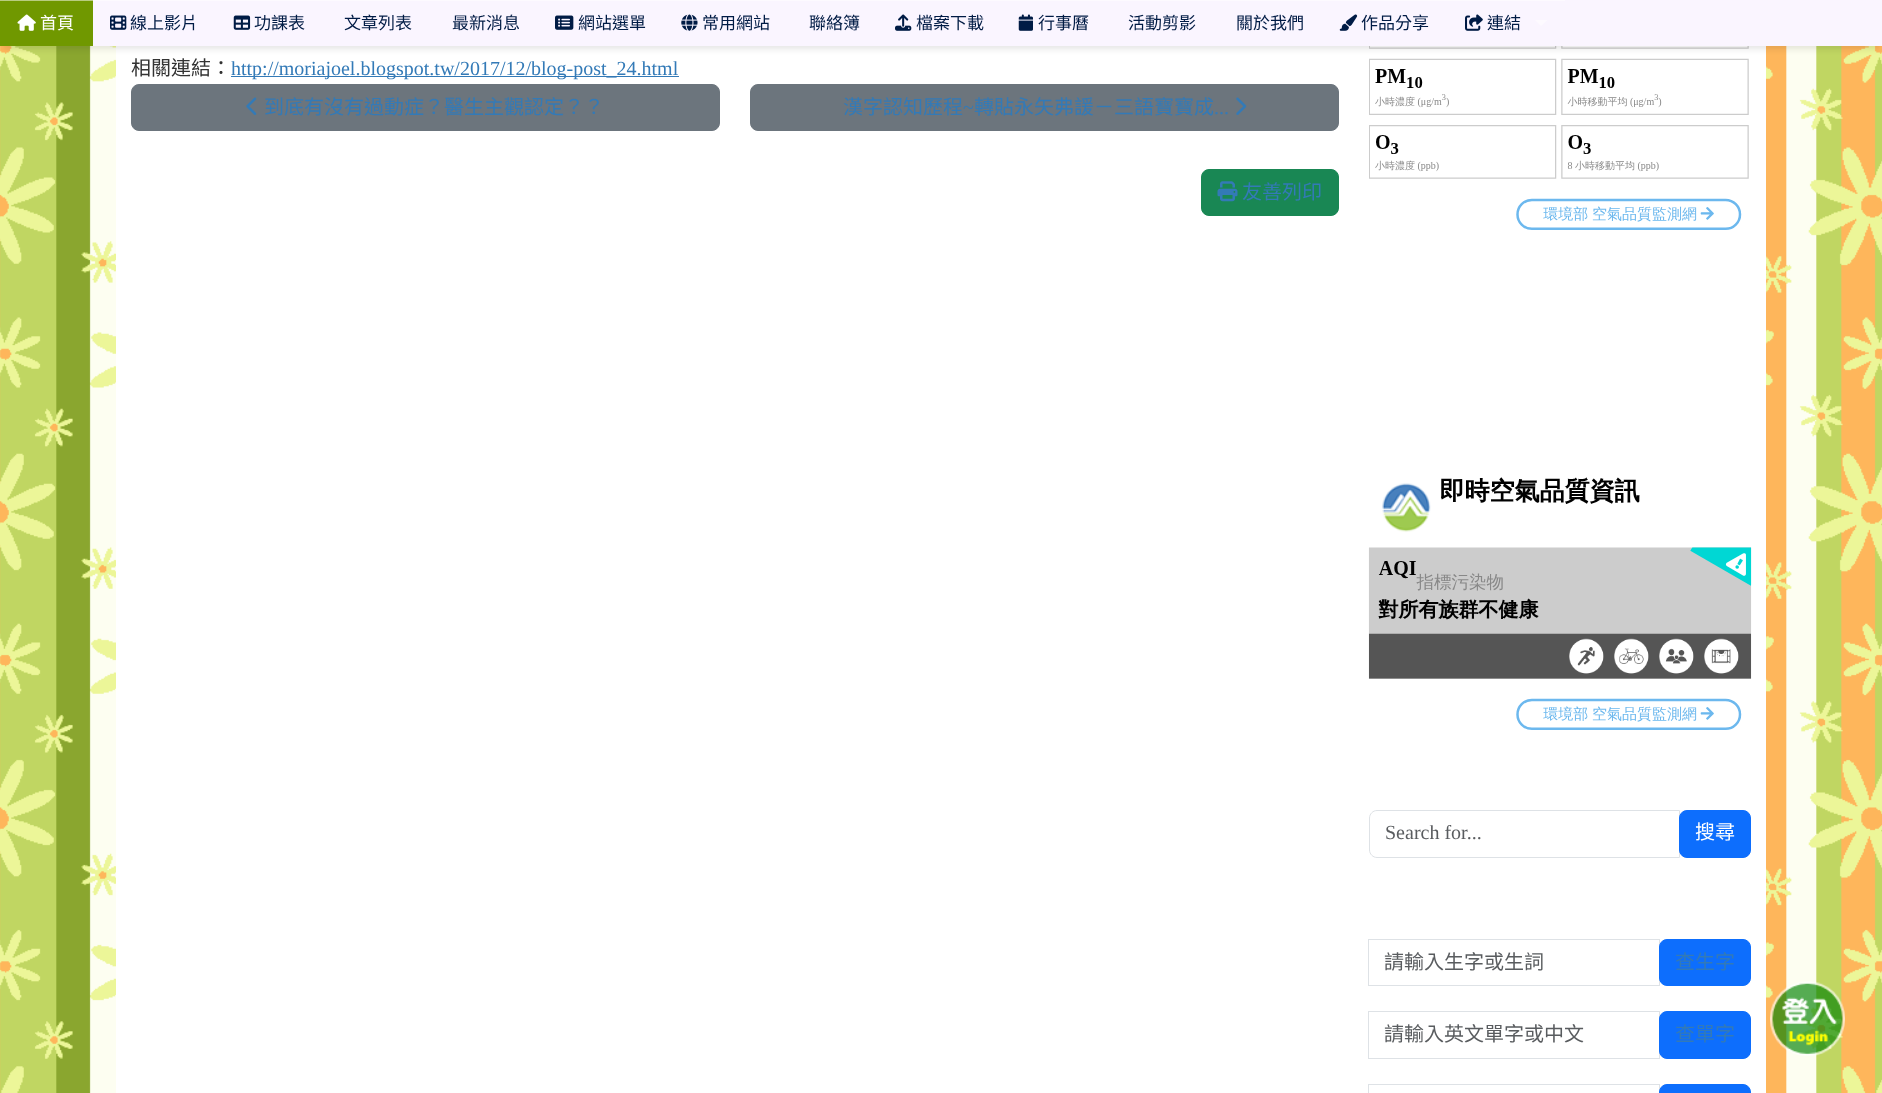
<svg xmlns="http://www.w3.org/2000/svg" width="1882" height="1093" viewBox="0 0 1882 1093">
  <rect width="100%" height="100%" fill="rgb(255,255,255)"/>
  <image x="0" y="46" width="1882" height="1047" href="pic1.png"/>
  <rect x="116" y="46" width="1650" height="1047" fill="rgb(255,255,255)"/>
  <image x="1369" y="46" width="380" height="184" href="pic14.png"/>
  <rect x="4" y="10" width="1875" height="39" fill="rgba(0,0,0,0.1)" filter="blur(3px)"/>
  <rect x="93" y="0" width="1789" height="46" fill="rgb(250,245,255)"/>
  <rect x="0" y="1" width="93" height="45" fill="rgb(112,152,0)"/>
  <rect x="0" y="0" width="93" height="1" fill="rgb(184,204,128)"/>
  <image x="17" y="14" width="19" height="17" href="pic2.png"/>
  <text x="40" y="29" font-family="Noto Sans CJK TC" font-size="17" fill="rgb(255,255,255)">首頁</text>
  <rect x="93" y="0" width="1472" height="1" fill="rgb(253,250,255)"/>
  <image x="110" y="15" width="17" height="15" href="pic3.png"/>
  <text x="130" y="29" font-family="Noto Sans CJK TC" font-size="17" fill="rgb(0,27,69)">線上影片</text>
  <image x="233" y="15" width="18" height="15" href="pic4.png"/>
  <g font-family="Noto Sans CJK TC" font-size="17" fill="rgb(0,27,69)">
    <text x="254" y="29">功課表</text>
    <text x="344" y="29">文章列表</text>
    <text x="452" y="29">最新消息</text>
  </g>
  <image x="555" y="15" width="19" height="15" href="pic5.png"/>
  <text x="578" y="29" font-family="Noto Sans CJK TC" font-size="17" fill="rgb(0,27,69)">網站選單</text>
  <image x="681" y="14" width="17" height="17" href="pic6.png"/>
  <g font-family="Noto Sans CJK TC" font-size="17" fill="rgb(0,27,69)">
    <text x="702" y="29">常用網站</text>
    <text x="809" y="29">聯絡簿</text>
  </g>
  <image x="895" y="14" width="17" height="17" href="pic7.png"/>
  <text x="916" y="29" font-family="Noto Sans CJK TC" font-size="17" fill="rgb(0,27,69)">檔案下載</text>
  <image x="1018" y="14" width="15" height="17" href="pic8.png"/>
  <g font-family="Noto Sans CJK TC" font-size="17" fill="rgb(0,27,69)">
    <text x="1038" y="29">行事曆</text>
    <text x="1128" y="29">活動剪影</text>
    <text x="1236" y="29">關於我們</text>
  </g>
  <image x="1339" y="14" width="19" height="17" href="pic9.png"/>
  <text x="1361" y="29" font-family="Noto Sans CJK TC" font-size="17" fill="rgb(0,27,69)">作品分享</text>
  <image x="1465" y="14" width="18" height="17" href="pic10.png"/>
  <text x="1487" y="29" font-family="Noto Sans CJK TC" font-size="17" fill="rgb(0,27,69)">連結</text>
  <path d="M1535 20H1547.5L1541 26Z" fill="rgb(253,250,255)"/>
  <text x="131" y="75" font-family="Noto Sans CJK TC" font-size="20" fill="rgb(51,51,51)">相關連結：</text>
  <rect x="231" y="76" width="448" height="1" fill="rgb(51,122,183)"/>
  <text x="231" y="75" font-family="Liberation Serif" font-size="20" fill="rgb(51,122,183)">http://moriajoel.blogspot.tw/2017/12/blog-post_24.html</text>
  <rect x="131.5" y="84.5" width="588" height="46" rx="7.5" fill="rgb(108,117,125)" stroke="rgb(108,117,125)"/>
  <image x="246" y="97" width="11" height="18" href="pic11.png"/>
  <text x="264" y="114" font-family="Noto Sans CJK TC" font-size="20" fill="rgb(51,122,183)">到底有沒有過動症？醫生主觀認定？？</text>
  <rect x="750.5" y="84.5" width="588" height="46" rx="7.5" fill="rgb(108,117,125)" stroke="rgb(108,117,125)"/>
  <text x="843" y="114" font-family="Noto Sans CJK TC" font-size="20" fill="rgb(51,122,183)">漢字認知歷程</text>
  <text x="963" y="114" font-family="Liberation Serif" font-size="20" fill="rgb(51,122,183)">~</text>
  <text x="974" y="114" font-family="Noto Sans CJK TC" font-size="20" fill="rgb(51,122,183)">轉貼永矢弗諼－三語寶寶成</text>
  <image x="1236" y="97" width="11" height="18" href="pic12.png"/>
  <text x="1214" y="114" font-family="Liberation Serif" font-size="20" fill="rgb(51,122,183)">...</text>
  <rect x="1201.5" y="169.5" width="137" height="46" rx="7.5" fill="rgb(25,135,84)" stroke="rgb(25,135,84)"/>
  <image x="1217" y="181" width="21" height="21" href="pic13.png"/>
  <text x="1242" y="199" font-family="Noto Sans CJK TC" font-size="20" fill="rgb(51,122,183)">友善列印</text>
  <image x="1368" y="477" width="384" height="253" href="pic15.png"/>
  <path d="M1377 810.5H1679.5V857.5H1377C1373 857.5 1369.5 854 1369.5 850V818C1369.5 814 1373 810.5 1377 810.5Z" fill="none" stroke="rgb(222,226,230)"/>
  <text x="1385" y="839" font-family="Liberation Serif" font-size="20" fill="rgb(89,92,95)">Search for...</text>
  <rect x="1679.5" y="810.5" width="71" height="47" rx="7.5" fill="rgb(13,110,253)" stroke="rgb(13,110,253)"/>
  <text x="1695" y="839" font-family="Noto Sans CJK TC" font-size="20" fill="rgb(255,255,255)">搜尋</text>
  <rect x="1368.5" y="939.5" width="291" height="46" fill="none" stroke="rgb(222,226,230)"/>
  <text x="1384" y="969" font-family="Noto Sans CJK TC" font-size="20" fill="rgb(89,92,95)">請輸入生字或生詞</text>
  <rect x="1659.5" y="939.5" width="91" height="46" rx="7.5" fill="rgb(13,110,253)" stroke="rgb(13,110,253)"/>
  <text x="1675" y="969" font-family="Noto Sans CJK TC" font-size="20" fill="rgb(51,122,183)">查生字</text>
  <rect x="1368.5" y="1011.5" width="291" height="47" fill="none" stroke="rgb(222,226,230)"/>
  <text x="1384" y="1041" font-family="Noto Sans CJK TC" font-size="20" fill="rgb(89,92,95)">請輸入英文單字或中文</text>
  <rect x="1659.5" y="1011.5" width="91" height="47" rx="7.5" fill="rgb(13,110,253)" stroke="rgb(13,110,253)"/>
  <text x="1675" y="1041" font-family="Noto Sans CJK TC" font-size="20" fill="rgb(51,122,183)">查單字</text>
  <rect x="1368.5" y="1084.5" width="291" height="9" fill="none" stroke="rgb(222,226,230)"/>
  <rect x="1659.5" y="1084.5" width="91" height="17" rx="7.5" fill="rgb(13,110,253)" stroke="rgb(13,110,253)"/>
  <image x="1770" y="981" width="75" height="75" href="pic16.png"/>
</svg>
